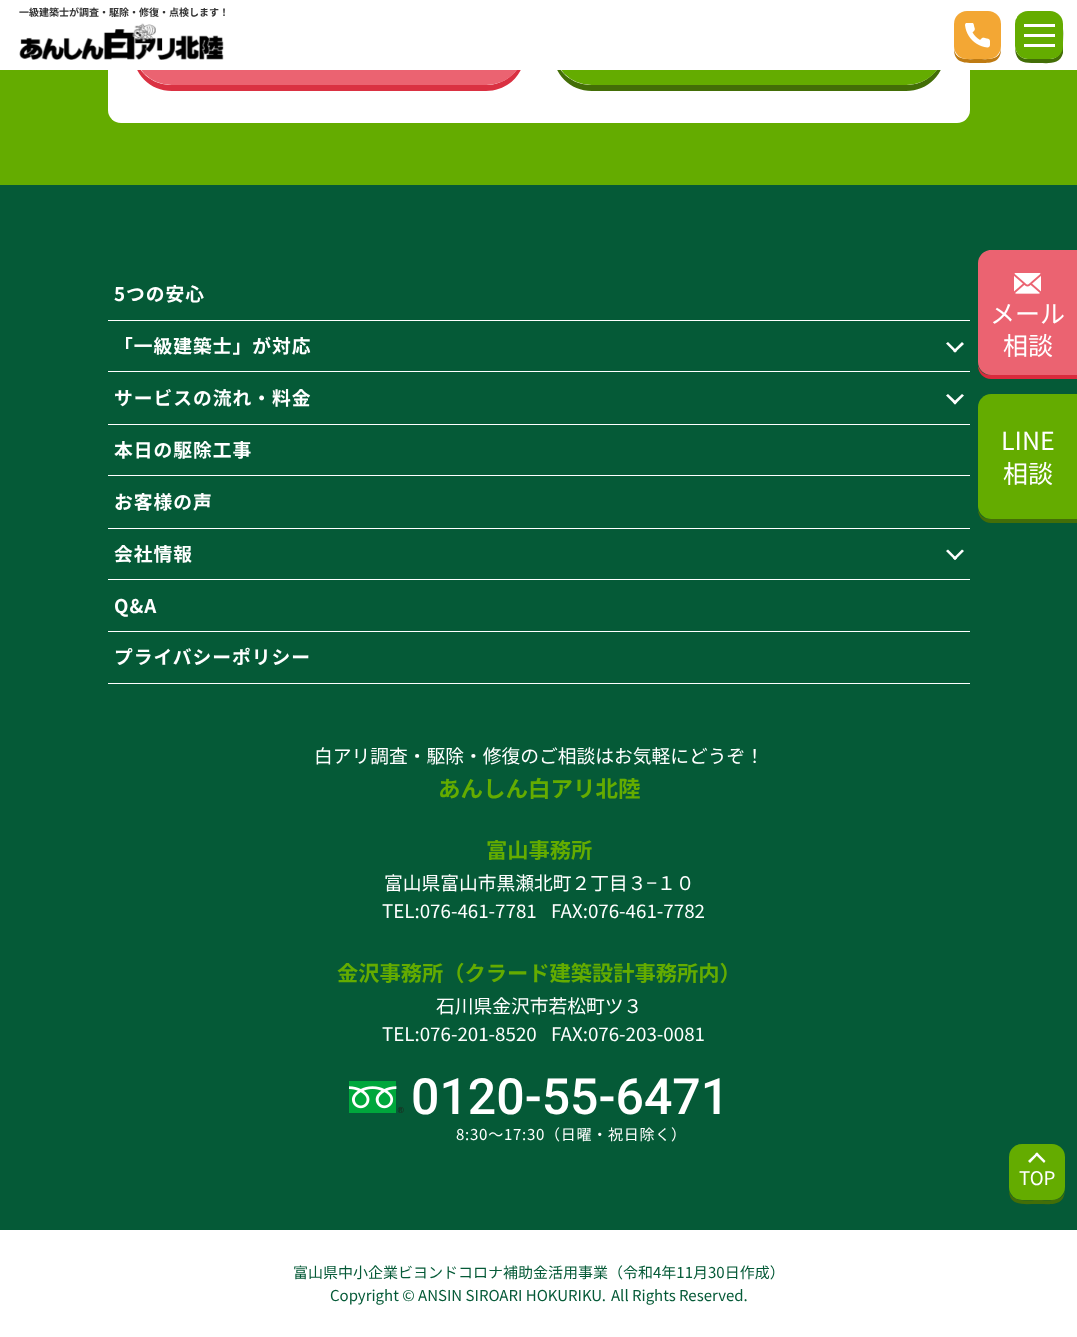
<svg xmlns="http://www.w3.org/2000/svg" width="1077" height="1337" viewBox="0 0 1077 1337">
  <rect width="100%" height="100%" fill="rgb(100,172,0)"/>
  <rect x="108" y="-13" width="862" height="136" rx="13" fill="rgb(255,255,255)"/>
  <path d="M133 52C133 74 150 91 172 91H486C508 91 525 74 525 52V49C523 69 507 85 486 85H171C152 85 136 71 133 52Z" fill="rgb(218,49,66)"/>
  <rect x="133" y="8" width="392" height="77" rx="38.5" fill="rgb(235,99,113)"/>
  <path d="M553 52C553 74 570 91 592 91H906C928 91 945 74 945 52V49C943 69 927 85 906 85H591C572 85 556 71 553 52Z" fill="rgb(67,110,7)"/>
  <rect x="553" y="8" width="392" height="77" rx="38.5" fill="rgb(100,172,0)"/>
  <rect x="0" y="0" width="1077" height="70" fill="rgb(255,255,255)"/>
  <text x="19" y="16" font-family="Noto Sans JP" font-size="10" font-weight="bold" fill="rgb(51,51,51)">一級建築士が調査・駆除・修復・点検します！</text>
  <image x="19" y="23" width="205" height="37" href="pic1.png"/>
  <path d="M954 49C954 64 966 63 978 63C989 63 1001 64 1001 49C999 61 987 59 978 59C968 59 956 61 954 49Z" fill="rgb(191,123,19)"/>
  <rect x="954" y="11" width="47" height="48" rx="13" fill="rgb(243,167,52)"/>
  <image x="965" y="23" width="25" height="25" href="pic2.png"/>
  <path d="M1015 46C1015 64 1025 63 1039 63C1048 63 1060 65 1063 53V43C1063 37 1064 30 1062 24V46C1062 53 1057 59 1050 59H1028C1021 59 1015 53 1015 46Z" fill="rgb(67,110,7)"/>
  <rect x="1015" y="11" width="48" height="48" rx="13" fill="rgb(100,172,0)"/>
  <rect x="1024" y="24" width="31" height="3" fill="rgb(255,255,255)"/>
  <rect x="1024" y="34" width="31" height="3" fill="rgb(255,255,255)"/>
  <rect x="1024" y="44" width="31" height="3" fill="rgb(255,255,255)"/>
  <rect x="0" y="185" width="1077" height="1045" fill="rgb(5,90,55)"/>
  <text x="114" y="301" font-family="Noto Sans JP" font-size="18.75" font-weight="bold" letter-spacing="1" fill="rgb(255,255,255)">5つの安心</text>
  <rect x="108" y="320" width="862" height="1" fill="rgb(255,255,255)"/>
  <text x="114" y="353" font-family="Noto Sans JP" font-size="18.75" font-weight="bold" letter-spacing="1" fill="rgb(255,255,255)">「一級建築士」が対応</text>
  <path d="M962 342L964 344L955 352.5L953 351Z" fill="rgb(255,255,255)"/>
  <path d="M948 342L957 351L955 352.5L946 343.5Z" fill="rgb(255,255,255)"/>
  <rect x="108" y="371" width="862" height="1" fill="rgb(255,255,255)"/>
  <text x="114" y="405" font-family="Noto Sans JP" font-size="18.75" font-weight="bold" letter-spacing="1" fill="rgb(255,255,255)">サービスの流れ・料金</text>
  <path d="M962 394L964 395.5L955 404.5L953 402.5Z" fill="rgb(255,255,255)"/>
  <path d="M948 394L957 402.5L955 404.5L946 395.5Z" fill="rgb(255,255,255)"/>
  <rect x="108" y="424" width="862" height="1" fill="rgb(255,255,255)"/>
  <text x="114" y="457" font-family="Noto Sans JP" font-size="18.75" font-weight="bold" letter-spacing="1" fill="rgb(255,255,255)">本日の駆除工事</text>
  <rect x="108" y="475" width="862" height="1" fill="rgb(255,255,255)"/>
  <text x="114" y="509" font-family="Noto Sans JP" font-size="18.75" font-weight="bold" letter-spacing="1" fill="rgb(255,255,255)">お客様の声</text>
  <rect x="108" y="528" width="862" height="1" fill="rgb(255,255,255)"/>
  <text x="114" y="561" font-family="Noto Sans JP" font-size="18.75" font-weight="bold" letter-spacing="1" fill="rgb(255,255,255)">会社情報</text>
  <path d="M962 549.5L964 551L955 560L953 558.5Z" fill="rgb(255,255,255)"/>
  <path d="M948 549.5L957 558.5L955 560L946 551Z" fill="rgb(255,255,255)"/>
  <rect x="108" y="579" width="862" height="1" fill="rgb(255,255,255)"/>
  <text x="114" y="613" font-family="Noto Sans JP" font-size="18.75" font-weight="bold" letter-spacing="1" fill="rgb(255,255,255)">Q&amp;A</text>
  <rect x="108" y="631" width="862" height="1" fill="rgb(255,255,255)"/>
  <rect x="108" y="683" width="862" height="1" fill="rgb(255,255,255)"/>
  <text x="114" y="664" font-family="Noto Sans JP" font-size="18.75" font-weight="bold" letter-spacing="1" fill="rgb(255,255,255)">プライバシーポリシー</text>
  <text x="314" y="763" font-family="Noto Sans JP" font-size="18.75" fill="rgb(255,255,255)">白アリ調査・駆除・修復のご相談はお気軽にどうぞ！</text>
  <text x="438" y="797" font-family="Noto Sans JP" font-size="22.5" font-weight="bold" fill="rgb(100,172,0)">あんしん白アリ北陸</text>
  <text x="486" y="858" font-family="Noto Sans JP" font-size="21.25" font-weight="bold" fill="rgb(100,172,0)">富山事務所</text>
  <g font-family="Noto Sans JP" font-size="18.75" fill="rgb(255,255,255)">
    <text x="384" y="890">富山県富山市黒瀬北町２丁目３−１０</text>
    <text x="382" y="918">TEL:076-461-7781</text>
    <text x="551" y="918">FAX:076-461-7782</text>
  </g>
  <text x="337" y="981" font-family="Noto Sans JP" font-size="21.25" font-weight="bold" fill="rgb(100,172,0)">金沢事務所（クラード建築設計事務所内）</text>
  <g font-family="Noto Sans JP" font-size="18.75" fill="rgb(255,255,255)">
    <text x="436" y="1013">石川県金沢市若松町ツ３</text>
    <text x="382" y="1041">TEL:076-201-8520</text>
    <text x="551" y="1041">FAX:076-203-0081</text>
  </g>
  <image x="349" y="1081" width="55" height="32" href="pic3.png"/>
  <text x="411" y="1114" font-family="Roboto" font-size="50" font-weight="500" fill="rgb(255,255,255)">0120-55-6471</text>
  <text x="456" y="1140" font-family="Noto Sans JP" font-size="15" letter-spacing="0.75" fill="rgb(255,255,255)">8:30〜17:30（日曜・祝日除く）</text>
  <rect x="0" y="1230" width="1077" height="107" fill="rgb(255,255,255)"/>
  <g font-family="Noto Sans JP" font-size="15" fill="rgb(5,90,55)">
    <text x="293" y="1278">富山県中小企業ビヨンドコロナ補助金活用事業（令和4年11月30日作成）</text>
    <text x="330" y="1301">Copyright © ANSIN SIROARI HOKURIKU.</text>
    <text x="611" y="1301">All Rights Reserved.</text>
  </g>
  <path d="M978 366C978 373 984 379 991 379H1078V254V375H990C984 375 980 371 978 366Z" fill="rgb(219,42,60)"/>
  <path d="M991 250H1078V375H991C984 375 978 369 978 362V263C978 256 984 250 991 250Z" fill="rgb(235,99,113)"/>
  <image x="1014" y="273" width="27" height="21" href="pic4.png"/>
  <g font-family="Noto Sans JP" font-size="25" fill="rgb(255,255,255)">
    <text x="990" y="323">メール</text>
    <text x="1003" y="355">相談</text>
  </g>
  <path d="M978 510C978 517 984 523 991 523H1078V398V519H990C984 519 980 515 978 510Z" fill="rgb(67,110,7)"/>
  <path d="M991 394H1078V519H991C984 519 978 513 978 506V407C978 400 984 394 991 394Z" fill="rgb(100,172,0)"/>
  <g font-family="Noto Sans JP" font-size="25" fill="rgb(255,255,255)">
    <text x="1001" y="450">LINE</text>
    <text x="1003" y="483">相談</text>
  </g>
  <path d="M1009 1190C1009 1207 1025 1204 1037 1204C1052 1204 1065 1207 1065 1188C1065 1203 1047 1200 1037 1200C1027 1200 1012 1203 1009 1190Z" fill="rgb(67,110,7)"/>
  <rect x="1009" y="1144" width="56" height="56" rx="13" fill="rgb(100,172,0)"/>
  <path d="M1028 1161L1037 1152.5L1038.5 1154L1030 1163Z" fill="rgb(255,255,255)"/>
  <path d="M1035 1154L1037 1152.5L1045.5 1161L1044 1163Z" fill="rgb(255,255,255)"/>
  <text x="1019" y="1185" font-family="Noto Sans JP" font-size="18.75" fill="rgb(255,255,255)">TOP</text>
</svg>
